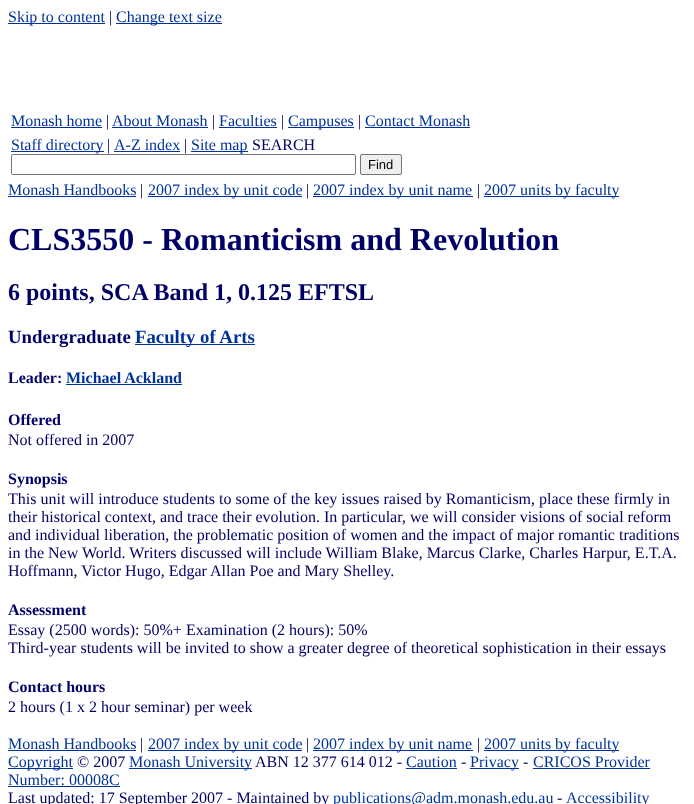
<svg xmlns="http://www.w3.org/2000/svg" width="694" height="804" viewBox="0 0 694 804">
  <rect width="100%" height="100%" fill="rgb(255,255,255)"/>
  <rect x="8" y="23" width="97" height="1" fill="rgb(0,51,153)"/>
  <text x="8" y="22" font-family="Liberation Serif" font-size="16" fill="rgb(0,51,153)">Skip to content</text>
  <text x="109" y="22" font-family="Liberation Serif" font-size="16" fill="rgb(0,0,102)">|</text>
  <rect x="116" y="23" width="106" height="1" fill="rgb(0,51,153)"/>
  <g font-family="Liberation Serif" font-size="16" fill="rgb(0,51,153)">
    <text x="116" y="22">Change text size</text>
    <text x="11" y="126">Monash home</text>
  </g>
  <rect x="11" y="127" width="91" height="1" fill="rgb(0,51,153)"/>
  <text x="106" y="126" font-family="Liberation Serif" font-size="16" fill="rgb(0,0,102)">|</text>
  <text x="112" y="126" font-family="Liberation Serif" font-size="16" fill="rgb(0,51,153)">About Monash</text>
  <rect x="112" y="127" width="96" height="1" fill="rgb(0,51,153)"/>
  <text x="212" y="126" font-family="Liberation Serif" font-size="16" fill="rgb(0,0,102)">|</text>
  <text x="219" y="126" font-family="Liberation Serif" font-size="16" fill="rgb(0,51,153)">Faculties</text>
  <rect x="219" y="127" width="58" height="1" fill="rgb(0,51,153)"/>
  <text x="281" y="126" font-family="Liberation Serif" font-size="16" fill="rgb(0,0,102)">|</text>
  <rect x="288" y="127" width="66" height="1" fill="rgb(0,51,153)"/>
  <text x="288" y="126" font-family="Liberation Serif" font-size="16" fill="rgb(0,51,153)">Campuses</text>
  <text x="358" y="126" font-family="Liberation Serif" font-size="16" fill="rgb(0,0,102)">|</text>
  <text x="365" y="126" font-family="Liberation Serif" font-size="16" fill="rgb(0,51,153)">Contact Monash</text>
  <rect x="365" y="127" width="105" height="1" fill="rgb(0,51,153)"/>
  <rect x="11" y="151" width="93" height="1" fill="rgb(0,51,153)"/>
  <text x="11" y="150" font-family="Liberation Serif" font-size="16" fill="rgb(0,51,153)">Staff directory</text>
  <text x="107" y="150" font-family="Liberation Serif" font-size="16" fill="rgb(0,0,102)">|</text>
  <text x="114" y="150" font-family="Liberation Serif" font-size="16" fill="rgb(0,51,153)">A-Z index</text>
  <rect x="114" y="151" width="66" height="1" fill="rgb(0,51,153)"/>
  <text x="184" y="150" font-family="Liberation Serif" font-size="16" fill="rgb(0,0,102)">|</text>
  <rect x="191" y="151" width="57" height="1" fill="rgb(0,51,153)"/>
  <text x="191" y="150" font-family="Liberation Serif" font-size="16" fill="rgb(0,51,153)">Site map</text>
  <text x="252" y="150" font-family="Liberation Serif" font-size="16" fill="rgb(0,0,102)">SEARCH</text>
  <rect x="11.5" y="154.5" width="344" height="20" rx="1.5" fill="none" stroke="rgb(118,118,118)"/>
  <rect x="360.5" y="154.5" width="41" height="20" rx="1.5" fill="rgb(239,239,239)" stroke="rgb(118,118,118)"/>
  <text x="368" y="169" font-family="Liberation Sans" font-size="13" fill="rgb(0,0,0)">Find</text>
  <text x="8" y="195" font-family="Liberation Serif" font-size="16" fill="rgb(0,51,153)">Monash Handbooks</text>
  <rect x="8" y="196" width="128" height="1" fill="rgb(0,51,153)"/>
  <text x="140" y="195" font-family="Liberation Serif" font-size="16" fill="rgb(0,0,102)">|</text>
  <rect x="148" y="196" width="154" height="1" fill="rgb(0,51,153)"/>
  <text x="148" y="195" font-family="Liberation Serif" font-size="16" fill="rgb(0,51,153)">2007 index by unit code</text>
  <text x="306" y="195" font-family="Liberation Serif" font-size="16" fill="rgb(0,0,102)">|</text>
  <rect x="313" y="196" width="160" height="1" fill="rgb(0,51,153)"/>
  <text x="313" y="195" font-family="Liberation Serif" font-size="16" fill="rgb(0,51,153)">2007 index by unit name</text>
  <text x="477" y="195" font-family="Liberation Serif" font-size="16" fill="rgb(0,0,102)">|</text>
  <rect x="484" y="196" width="135" height="1" fill="rgb(0,51,153)"/>
  <text x="484" y="195" font-family="Liberation Serif" font-size="16" fill="rgb(0,51,153)">2007 units by faculty</text>
  <text x="8" y="250" font-family="Liberation Serif" font-size="32" font-weight="bold" fill="rgb(0,0,102)">CLS3550 - Romanticism and Revolution</text>
  <text x="8" y="300" font-family="Liberation Serif" font-size="24" font-weight="bold" fill="rgb(0,0,102)">6 points, SCA Band 1, 0.125 EFTSL</text>
  <text x="8" y="343" font-family="Liberation Serif" font-size="18.75" font-weight="bold" fill="rgb(0,0,102)">Undergraduate</text>
  <rect x="135" y="344" width="120" height="1" fill="rgb(0,51,153)"/>
  <text x="135" y="343" font-family="Liberation Serif" font-size="18.75" font-weight="bold" fill="rgb(0,51,153)">Faculty of Arts</text>
  <text x="8" y="383" font-family="Liberation Serif" font-size="16" font-weight="bold" fill="rgb(0,0,102)">Leader:</text>
  <text x="66" y="383" font-family="Liberation Serif" font-size="16" font-weight="bold" fill="rgb(0,51,153)">Michael Ackland</text>
  <rect x="66" y="384" width="116" height="1" fill="rgb(0,51,153)"/>
  <text x="8" y="425" font-family="Liberation Serif" font-size="16" font-weight="bold" fill="rgb(0,0,102)">Offered</text>
  <text x="8" y="445" font-family="Liberation Serif" font-size="16" fill="rgb(0,0,102)">Not offered in 2007</text>
  <text x="8" y="484" font-family="Liberation Serif" font-size="16" font-weight="bold" fill="rgb(0,0,102)">Synopsis</text>
  <g font-family="Liberation Serif" font-size="16" fill="rgb(0,0,102)">
    <text>
      <tspan x="8" y="504">This unit will introduce students to some of the key issues raised by Romanticism, place these firmly in</tspan>
      <tspan x="8" y="522">their historical context, and trace their evolution. In particular, we will consider visions of social reform</tspan>
      <tspan x="8" y="540">and individual liberation, the problematic position of women and the impact of major romantic traditions</tspan>
      <tspan x="8" y="558">in the New World. Writers discussed will include William Blake, Marcus Clarke, Charles Harpur, E.T.A.</tspan>
      <tspan x="8" y="576">Hoffmann, Victor Hugo, Edgar Allan Poe and Mary Shelley.</tspan>
    </text>
  </g>
  <text x="8" y="615" font-family="Liberation Serif" font-size="16" font-weight="bold" fill="rgb(0,0,102)">Assessment</text>
  <g font-family="Liberation Serif" font-size="16" fill="rgb(0,0,102)">
    <text>
      <tspan x="8" y="635">Essay (2500 words): 50%+ Examination (2 hours): 50%</tspan>
      <tspan x="8" y="653">Third-year students will be invited to show a greater degree of theoretical sophistication in their essays</tspan>
    </text>
  </g>
  <text x="8" y="692" font-family="Liberation Serif" font-size="16" font-weight="bold" fill="rgb(0,0,102)">Contact hours</text>
  <text x="8" y="712" font-family="Liberation Serif" font-size="16" fill="rgb(0,0,102)">2 hours (1 x 2 hour seminar) per week</text>
  <text x="8" y="749" font-family="Liberation Serif" font-size="16" fill="rgb(0,51,153)">Monash Handbooks</text>
  <rect x="8" y="750" width="128" height="1" fill="rgb(0,51,153)"/>
  <text x="140" y="749" font-family="Liberation Serif" font-size="16" fill="rgb(0,0,102)">|</text>
  <rect x="148" y="750" width="154" height="1" fill="rgb(0,51,153)"/>
  <text x="148" y="749" font-family="Liberation Serif" font-size="16" fill="rgb(0,51,153)">2007 index by unit code</text>
  <text x="306" y="749" font-family="Liberation Serif" font-size="16" fill="rgb(0,0,102)">|</text>
  <rect x="313" y="750" width="160" height="1" fill="rgb(0,51,153)"/>
  <text x="313" y="749" font-family="Liberation Serif" font-size="16" fill="rgb(0,51,153)">2007 index by unit name</text>
  <text x="477" y="749" font-family="Liberation Serif" font-size="16" fill="rgb(0,0,102)">|</text>
  <rect x="484" y="750" width="135" height="1" fill="rgb(0,51,153)"/>
  <text x="484" y="749" font-family="Liberation Serif" font-size="16" fill="rgb(0,51,153)">2007 units by faculty</text>
  <rect x="8" y="768" width="65" height="1" fill="rgb(0,51,153)"/>
  <text x="8" y="767" font-family="Liberation Serif" font-size="16" fill="rgb(0,51,153)">Copyright</text>
  <text x="77" y="767" font-family="Liberation Serif" font-size="16" fill="rgb(0,0,102)">© 2007</text>
  <rect x="129" y="768" width="123" height="1" fill="rgb(0,51,153)"/>
  <text x="129" y="767" font-family="Liberation Serif" font-size="16" fill="rgb(0,51,153)">Monash University</text>
  <text x="255" y="767" font-family="Liberation Serif" font-size="16" fill="rgb(0,0,102)">ABN 12 377 614 012 -</text>
  <text x="406" y="767" font-family="Liberation Serif" font-size="16" fill="rgb(0,51,153)">Caution</text>
  <rect x="406" y="768" width="51" height="1" fill="rgb(0,51,153)"/>
  <text x="461" y="767" font-family="Liberation Serif" font-size="16" fill="rgb(0,0,102)">-</text>
  <rect x="470" y="768" width="49" height="1" fill="rgb(0,51,153)"/>
  <text x="470" y="767" font-family="Liberation Serif" font-size="16" fill="rgb(0,51,153)">Privacy</text>
  <text x="523" y="767" font-family="Liberation Serif" font-size="16" fill="rgb(0,0,102)">-</text>
  <text x="533" y="767" font-family="Liberation Serif" font-size="16" fill="rgb(0,51,153)">CRICOS Provider</text>
  <rect x="533" y="768" width="117" height="1" fill="rgb(0,51,153)"/>
  <text x="8" y="785" font-family="Liberation Serif" font-size="16" fill="rgb(0,51,153)">Number: 00008C</text>
  <rect x="8" y="786" width="112" height="1" fill="rgb(0,51,153)"/>
  <text x="8" y="803" font-family="Liberation Serif" font-size="16" fill="rgb(0,0,102)">Last updated: 17 September 2007 - Maintained by</text>
  <text x="333" y="803" font-family="Liberation Serif" font-size="16" fill="rgb(0,51,153)">publications@adm.monash.edu.au</text>
  <text x="557" y="803" font-family="Liberation Serif" font-size="16" fill="rgb(0,0,102)">-</text>
  <text x="566" y="803" font-family="Liberation Serif" font-size="16" fill="rgb(0,51,153)">Accessibility</text>
</svg>
